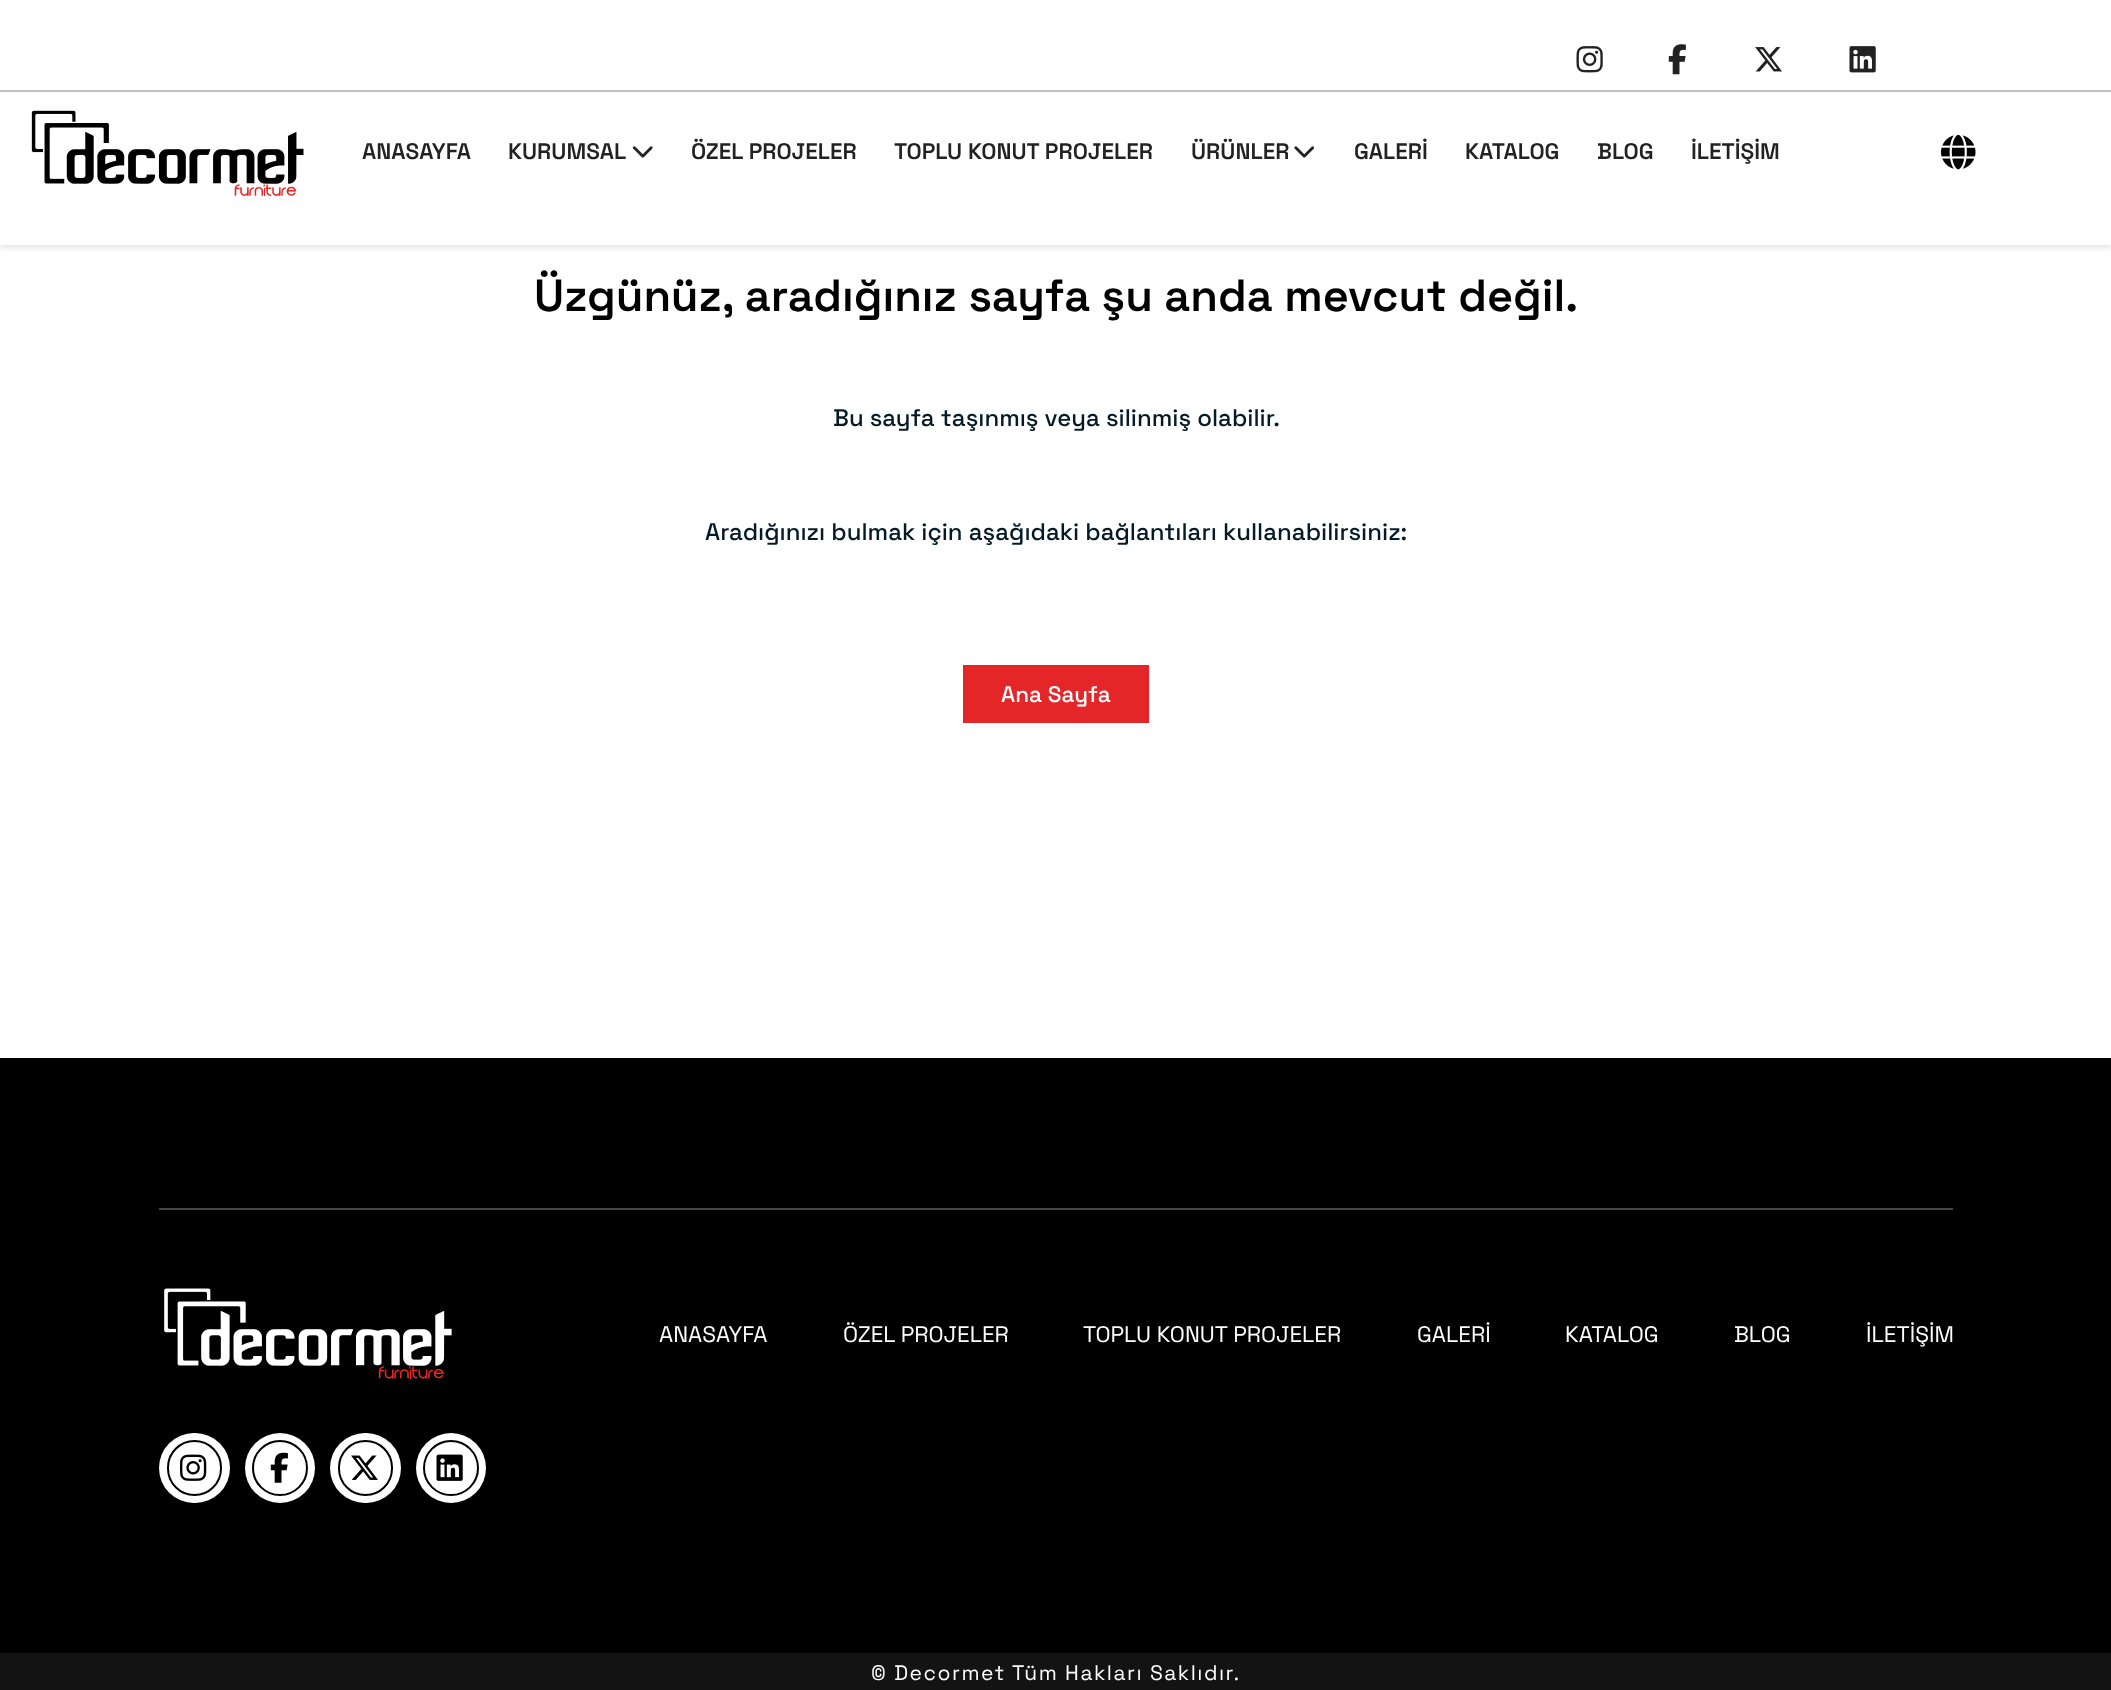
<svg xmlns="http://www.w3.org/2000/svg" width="2111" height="1690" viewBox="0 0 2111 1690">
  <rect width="100%" height="100%" fill="rgb(255,255,255)"/>
  <rect x="0" y="3" width="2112" height="245" fill="rgba(0,0,0,0.1)" filter="blur(3px)"/>
  <rect x="0" y="0" width="2111" height="245" fill="rgb(255,255,255)"/>
  <rect x="0" y="90" width="2111" height="2" fill="rgb(193,193,193)"/>
  <image x="1576" y="46" width="27" height="27" href="pic1.png"/>
  <image x="1668" y="44" width="18" height="31" href="pic2.png"/>
  <image x="1755" y="47" width="27" height="25" href="pic3.png"/>
  <image x="1849" y="46" width="27" height="27" href="pic4.png"/>
  <image x="31" y="110" width="273" height="86" href="pic5.png"/>
  <g font-family="Space Grotesk" font-size="22.5" font-weight="600" fill="rgb(34,34,34)">
    <text x="362" y="159">ANASAYFA</text>
    <text x="508" y="159">KURUMSAL</text>
  </g>
  <image x="632" y="146" width="21" height="12" href="pic6.png"/>
  <g font-family="Space Grotesk" font-size="22.5" font-weight="600" fill="rgb(34,34,34)">
    <text x="691" y="159">ÖZEL PROJELER</text>
    <text x="894" y="159">TOPLU KONUT PROJELER</text>
    <text x="1191" y="159">ÜRÜNLER</text>
  </g>
  <image x="1294" y="146" width="21" height="12" href="pic7.png"/>
  <g font-family="Space Grotesk" font-size="22.5" font-weight="600" fill="rgb(34,34,34)">
    <text x="1354" y="159">GALERİ</text>
    <text x="1465" y="159">KATALOG</text>
    <text x="1597" y="159">BLOG</text>
    <text x="1691" y="159">İLETİŞİM</text>
  </g>
  <image x="1941" y="134" width="35" height="36" href="pic8.png"/>
  <text x="534" y="311" font-family="Space Grotesk" font-size="45" font-weight="600" fill="rgb(0,0,0)">Üzgünüz, aradığınız sayfa şu anda mevcut değil.</text>
  <g font-family="Space Grotesk" font-size="24" font-weight="500" fill="rgb(4,26,39)">
    <text x="833" y="426">Bu sayfa taşınmış veya silinmiş olabilir.</text>
    <text x="705" y="540">Aradığınızı bulmak için aşağıdaki bağlantıları kullanabilirsiniz:</text>
  </g>
  <rect x="963" y="665" width="186" height="58" fill="rgb(229,38,41)"/>
  <text x="1001" y="702" font-family="Space Grotesk" font-size="22.5" font-weight="500" fill="rgb(255,255,255)">Ana Sayfa</text>
  <rect x="0" y="1058" width="2111" height="595" fill="rgb(0,0,0)"/>
  <rect x="159" y="1208" width="1794" height="2" fill="rgb(70,70,70)"/>
  <image x="164" y="1288" width="288" height="91" href="pic9.png"/>
  <g font-family="Space Grotesk" font-size="22.5" fill="rgb(255,255,255)">
    <text x="659" y="1342">ANASAYFA</text>
    <text x="843" y="1342">ÖZEL PROJELER</text>
    <text x="1083" y="1342">TOPLU KONUT PROJELER</text>
    <text x="1417" y="1342">GALERİ</text>
    <text x="1565" y="1342">KATALOG</text>
    <text x="1734" y="1342">BLOG</text>
    <text x="1866" y="1342">İLETİŞİM</text>
  </g>
  <rect x="159" y="1433" width="71" height="70" rx="35" fill="rgb(255,255,255)"/>
  <rect x="168" y="1441" width="53" height="54" rx="26.5" fill="none" stroke="rgb(0,0,0)" stroke-width="2"/>
  <image x="180" y="1454" width="27" height="27" href="pic10.png"/>
  <circle cx="280" cy="1468" r="35" fill="rgb(255,255,255)"/>
  <circle cx="280" cy="1468" r="27" fill="none" stroke="rgb(0,0,0)" stroke-width="2"/>
  <image x="270" y="1452" width="18" height="31" href="pic11.png"/>
  <rect x="330" y="1433" width="71" height="70" rx="35" fill="rgb(255,255,255)"/>
  <rect x="339" y="1441" width="53" height="54" rx="26.5" fill="none" stroke="rgb(0,0,0)" stroke-width="2"/>
  <image x="351" y="1455" width="27" height="25" href="pic12.png"/>
  <circle cx="451" cy="1468" r="35" fill="rgb(255,255,255)"/>
  <circle cx="451" cy="1468" r="27" fill="none" stroke="rgb(0,0,0)" stroke-width="2"/>
  <image x="436" y="1454" width="27" height="27" href="pic13.png"/>
  <rect x="0" y="1653" width="2111" height="37" fill="rgb(19,19,19)"/>
  <text x="871" y="1680" font-family="Space Grotesk" font-size="21" letter-spacing="1.5" fill="rgb(255,255,255)">© Decormet Tüm Hakları Saklıdır.</text>
</svg>
